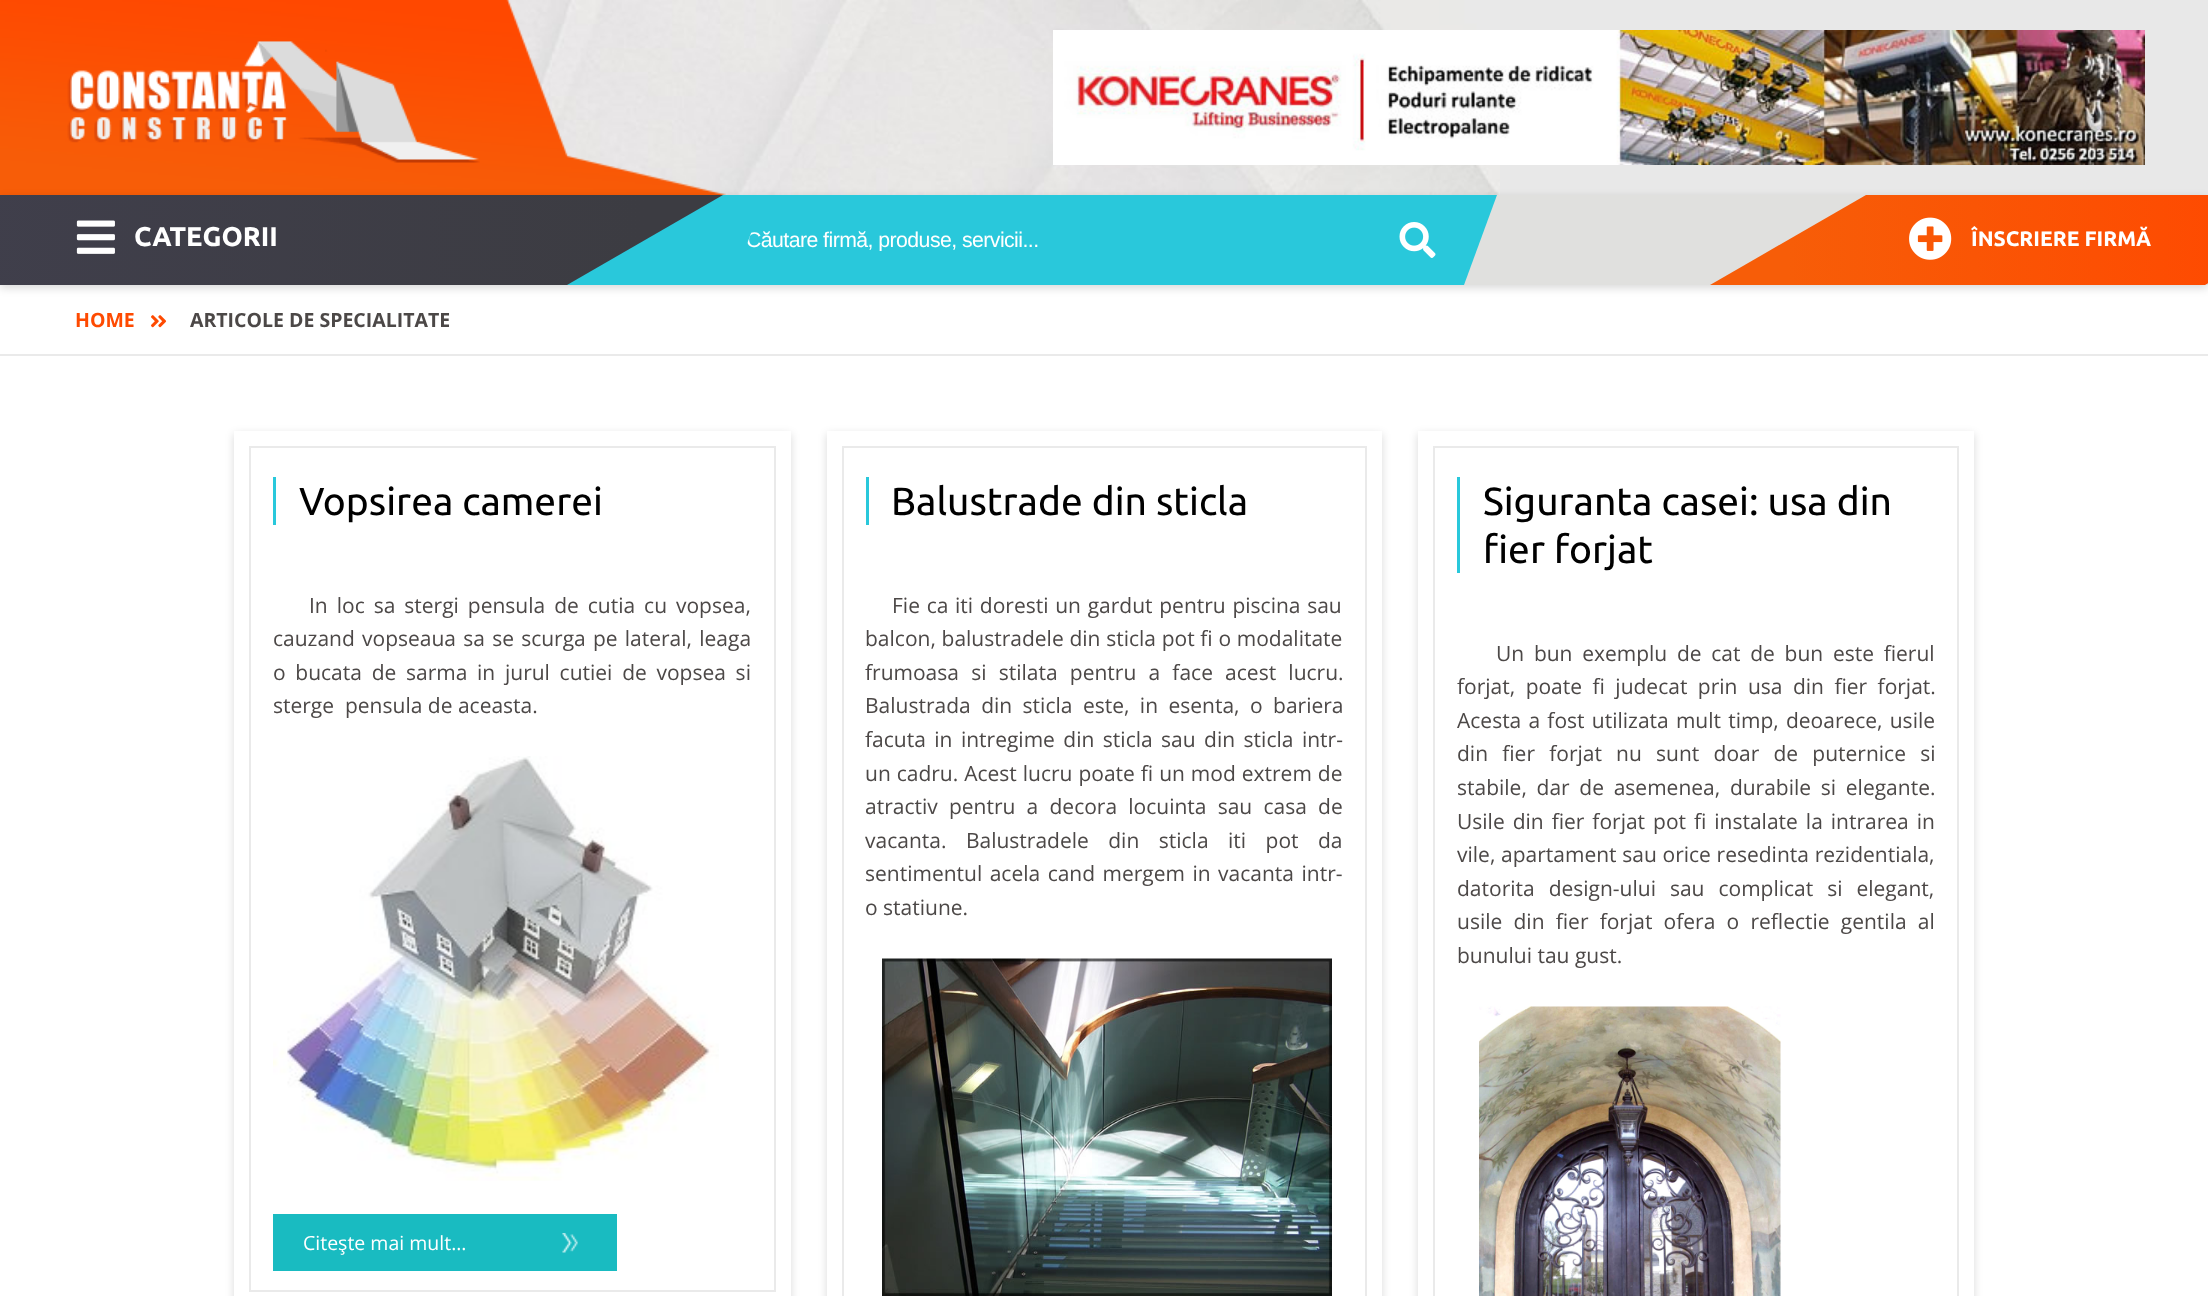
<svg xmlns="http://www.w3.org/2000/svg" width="2208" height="1296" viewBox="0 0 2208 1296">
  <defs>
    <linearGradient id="g1" gradientUnits="userSpaceOnUse" x1="-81" y1="240" x2="645" y2="240"><stop offset="0" stop-color="rgb(64,63,76)"/><stop offset="1" stop-color="rgb(60,60,66)"/></linearGradient>
    <clipPath id="clip1"><path d="M752.5 229H1480L1472 251H744.5Z"/></clipPath>
    <linearGradient id="g2" gradientUnits="userSpaceOnUse" x1="1788" y1="240" x2="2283" y2="240"><stop offset="0" stop-color="rgb(247,93,8)"/><stop offset="1" stop-color="rgb(255,72,0)"/></linearGradient>
    <clipPath id="clip2"><path d="M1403 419H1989V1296H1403ZM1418 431H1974V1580H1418Z" clip-rule="evenodd"/></clipPath>
  </defs>
  <rect width="100%" height="100%" fill="rgb(255,255,255)"/>
  <rect x="1500" y="0" width="708" height="195" fill="rgb(232,232,232)"/>
  <image x="506" y="0" width="994" height="195" href="pic1.png"/>
  <image x="0" y="0" width="726" height="195" href="pic2.png"/>
  <image x="67" y="41" width="413" height="122" href="pic3.png"/>
  <image x="1053" y="30" width="1092" height="135" href="pic4.png"/>
  <rect x="0" y="198" width="2208" height="90" fill="rgba(0,0,0,0.15)" filter="blur(4.5px)"/>
  <rect x="1464" y="195" width="744" height="90" fill="rgb(224,224,222)"/>
  <path d="M585 195H1497L1464 285H552Z" fill="rgb(41,200,219)"/>
  <path d="M-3 195H723L567 285H-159Z" fill="url(#g1)"/>
  <image x="76" y="220" width="39" height="34" href="pic5.png"/>
  <text x="134" y="246" font-family="Ubuntu" font-size="27" font-weight="bold" fill="rgb(255,255,255)">CATEGORII</text>
  <g clip-path="url(#clip1)">
    <text x="746" y="247" font-family="Liberation Sans" font-size="21.25" letter-spacing="-0.55" fill="rgb(255,255,255)">Căutare firmă, produse, servicii...</text>
  </g>
  <image x="1399" y="222" width="37" height="36" href="pic6.png"/>
  <path d="M1866 195H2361L2205 285H1710Z" fill="url(#g2)"/>
  <image x="1909" y="217" width="43" height="43" href="pic7.png"/>
  <text x="1971" y="246" font-family="Ubuntu" font-size="21" font-weight="bold" fill="rgb(255,255,255)">ÎNSCRIERE FIRMĂ</text>
  <rect x="0" y="354" width="2208" height="2" fill="rgb(234,234,234)"/>
  <text x="75" y="327" font-family="Open Sans" font-size="19.5" font-weight="bold" fill="rgb(254,74,1)">HOME</text>
  <image x="151" y="315" width="16" height="13" href="pic8.png"/>
  <text x="190" y="327" font-family="Open Sans" font-size="19.5" font-weight="bold" fill="rgb(76,72,71)">ARTICOLE DE SPECIALITATE</text>
  <rect x="234" y="434" width="557" height="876" fill="rgba(0,0,0,0.15)" filter="blur(4.5px)"/>
  <rect x="234" y="431" width="557" height="865" fill="rgb(255,255,255)"/>
  <rect x="250" y="447" width="525" height="844" fill="none" stroke="rgb(234,234,234)" stroke-width="2"/>
  <rect x="273" y="477" width="3" height="48" fill="rgb(41,200,219)"/>
  <text x="299" y="515" font-family="Ubuntu" font-size="39" fill="rgb(0,0,0)">Vopsirea camerei</text>
  <g font-family="Open Sans" font-size="21" fill="rgb(76,72,71)">
    <text x="309" y="613" word-spacing="3.5">In loc sa stergi pensula de cutia cu vopsea,</text>
    <text xml:space="preserve"><tspan x="273" y="646" word-spacing="1.75">cauzand vopseaua sa se scurga pe lateral, leaga</tspan><tspan x="273" y="680" word-spacing="4.25">o bucata de sarma in jurul cutiei de vopsea si</tspan><tspan x="273" y="713">sterge  pensula de aceasta.</tspan></text>
  </g>
  <image x="273" y="756" width="446" height="425" href="pic9.png"/>
  <rect x="273" y="1214" width="344" height="57" fill="rgb(25,187,193)"/>
  <text x="303" y="1250" font-family="Open Sans" font-size="19.5" fill="rgb(255,255,255)">Citeşte mai mult...</text>
  <image x="562" y="1233" width="16" height="20" href="pic10.png"/>
  <rect x="827" y="434" width="555" height="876" fill="rgba(0,0,0,0.15)" filter="blur(4.5px)"/>
  <rect x="827" y="431" width="555" height="865" fill="rgb(255,255,255)"/>
  <rect x="843" y="447" width="523" height="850" fill="none" stroke="rgb(234,234,234)" stroke-width="2"/>
  <rect x="866" y="477" width="3" height="48" fill="rgb(41,200,219)"/>
  <text x="891" y="515" font-family="Ubuntu" font-size="39" fill="rgb(0,0,0)">Balustrade din sticla</text>
  <g font-family="Open Sans" font-size="21" fill="rgb(76,72,71)">
    <text x="892" y="613" word-spacing="1.25">Fie ca iti doresti un gardut pentru piscina sau</text>
    <text>
      <tspan x="865" y="646" word-spacing="0.25">balcon, balustradele din sticla pot fi o modalitate</tspan>
      <tspan x="865" y="680" word-spacing="6.75">frumoasa si stilata pentru a face acest lucru.</tspan>
      <tspan x="865" y="713" word-spacing="5">Balustrada din sticla este, in esenta, o bariera</tspan>
      <tspan x="865" y="747" word-spacing="3">facuta in intregime din sticla sau din sticla intr-</tspan>
      <tspan x="865" y="781" word-spacing="0.5">un cadru. Acest lucru poate fi un mod extrem de</tspan>
      <tspan x="865" y="814" word-spacing="5.75">atractiv pentru a decora locuinta sau casa de</tspan>
      <tspan x="865" y="848" word-spacing="14">vacanta. Balustradele din sticla iti pot da</tspan>
      <tspan x="865" y="881" word-spacing="2">sentimentul acela cand mergem in vacanta intr-</tspan>
      <tspan x="865" y="915">o statiune.</tspan>
    </text>
  </g>
  <image x="882" y="958" width="450" height="338" href="pic11.png"/>
  <g clip-path="url(#clip2)">
    <rect x="1418" y="434" width="556" height="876" fill="rgba(0,0,0,0.15)" filter="blur(4.5px)"/>
  </g>
  <rect x="1434" y="447" width="524" height="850" fill="none" stroke="rgb(234,234,234)" stroke-width="2"/>
  <rect x="1457" y="477" width="3" height="96" fill="rgb(41,200,219)"/>
  <g font-family="Ubuntu" font-size="39" fill="rgb(0,0,0)">
    <text>
      <tspan x="1483" y="515">Siguranta casei: usa din</tspan>
      <tspan x="1483" y="563">fier forjat</tspan>
    </text>
  </g>
  <g font-family="Open Sans" font-size="21" fill="rgb(76,72,71)">
    <text x="1496" y="661" word-spacing="4.25">Un bun exemplu de cat de bun este fierul</text>
    <text>
      <tspan x="1457" y="694" word-spacing="5">forjat, poate fi judecat prin usa din fier forjat.</tspan>
      <tspan x="1457" y="728" word-spacing="1.75">Acesta a fost utilizata mult timp, deoarece, usile</tspan>
      <tspan x="1457" y="761" word-spacing="8.75">din fier forjat nu sunt doar de puternice si</tspan>
      <tspan x="1457" y="795" word-spacing="4.25">stabile, dar de asemenea, durabile si elegante.</tspan>
      <tspan x="1457" y="829" word-spacing="2.5">Usile din fier forjat pot fi instalate la intrarea in</tspan>
      <tspan x="1457" y="862" word-spacing="0.25">vile, apartament sau orice resedinta rezidentiala,</tspan>
      <tspan x="1457" y="896" word-spacing="8.5">datorita design-ului sau complicat si elegant,</tspan>
      <tspan x="1457" y="929" word-spacing="5.75">usile din fier forjat ofera o reflectie gentila al</tspan>
      <tspan x="1457" y="963">bunului tau gust.</tspan>
    </text>
  </g>
  <image x="1479" y="1006" width="302" height="290" href="pic12.png"/>
</svg>
